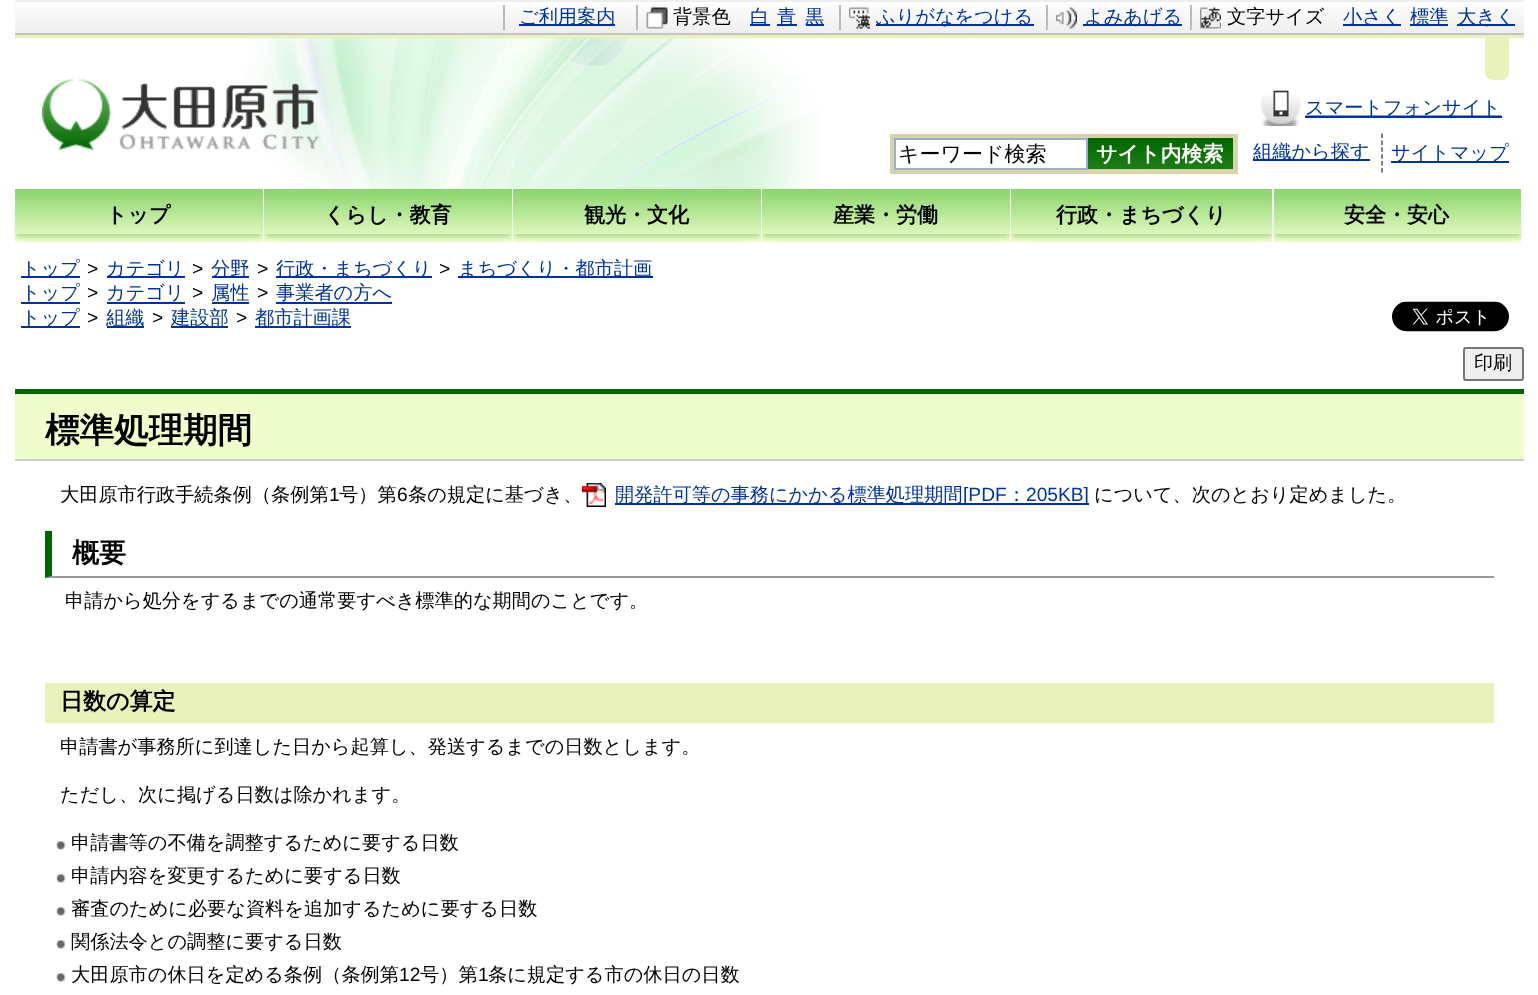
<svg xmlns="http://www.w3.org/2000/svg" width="1538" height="995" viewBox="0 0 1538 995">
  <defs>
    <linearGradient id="g1" gradientUnits="userSpaceOnUse" x1="770" y1="-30" x2="770" y2="1.5"><stop offset="0" stop-color="rgb(254,254,254)"/><stop offset="1" stop-color="rgb(238,238,239)"/></linearGradient>
    <linearGradient id="g2" gradientUnits="userSpaceOnUse" x1="770" y1="1.5" x2="770" y2="33"><stop offset="0" stop-color="rgb(254,254,254)"/><stop offset="1" stop-color="rgb(238,238,239)"/></linearGradient>
    <linearGradient id="g3" gradientUnits="userSpaceOnUse" x1="1064" y1="138" x2="1064" y2="170"><stop offset="0" stop-color="rgb(0,102,0)"/><stop offset="1" stop-color="rgb(28,124,21)"/></linearGradient>
    <linearGradient id="g4" gradientUnits="userSpaceOnUse" x1="1160" y1="138" x2="1160" y2="167"><stop offset="0" stop-color="rgb(0,102,0)"/><stop offset="1" stop-color="rgb(28,124,21)"/></linearGradient>
    <linearGradient id="g5" gradientUnits="userSpaceOnUse" x1="139" y1="189" x2="139" y2="242"><stop offset="0" stop-color="rgb(137,213,108)"/><stop offset="1" stop-color="rgb(238,253,203)"/></linearGradient>
    <clipPath id="clip1"><path d="M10 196H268V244H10ZM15 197H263V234H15Z" clip-rule="evenodd"/></clipPath>
    <linearGradient id="g6" gradientUnits="userSpaceOnUse" x1="388" y1="189" x2="388" y2="242"><stop offset="0" stop-color="rgb(137,213,108)"/><stop offset="1" stop-color="rgb(238,253,203)"/></linearGradient>
    <clipPath id="clip2"><path d="M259 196H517V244H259ZM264 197H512V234H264Z" clip-rule="evenodd"/></clipPath>
    <linearGradient id="g7" gradientUnits="userSpaceOnUse" x1="637" y1="189" x2="637" y2="242"><stop offset="0" stop-color="rgb(137,213,108)"/><stop offset="1" stop-color="rgb(238,253,203)"/></linearGradient>
    <clipPath id="clip3"><path d="M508 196H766V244H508ZM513 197H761V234H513Z" clip-rule="evenodd"/></clipPath>
    <linearGradient id="g8" gradientUnits="userSpaceOnUse" x1="886" y1="189" x2="886" y2="242"><stop offset="0" stop-color="rgb(137,213,108)"/><stop offset="1" stop-color="rgb(238,253,203)"/></linearGradient>
    <clipPath id="clip4"><path d="M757 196H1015V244H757ZM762 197H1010V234H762Z" clip-rule="evenodd"/></clipPath>
    <linearGradient id="g9" gradientUnits="userSpaceOnUse" x1="1142" y1="189" x2="1142" y2="242"><stop offset="0" stop-color="rgb(137,213,108)"/><stop offset="1" stop-color="rgb(238,253,203)"/></linearGradient>
    <clipPath id="clip5"><path d="M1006 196H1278V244H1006ZM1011 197H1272V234H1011Z" clip-rule="evenodd"/></clipPath>
    <linearGradient id="g10" gradientUnits="userSpaceOnUse" x1="1397" y1="189" x2="1397" y2="242"><stop offset="0" stop-color="rgb(137,213,108)"/><stop offset="1" stop-color="rgb(238,253,203)"/></linearGradient>
    <clipPath id="clip6"><path d="M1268 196H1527V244H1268ZM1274 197H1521V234H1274Z" clip-rule="evenodd"/></clipPath>
  </defs>
  <rect width="100%" height="100%" fill="rgb(255,255,255)"/>
  <rect x="15" y="0" width="1509" height="2" fill="url(#g1)"/>
  <rect x="15" y="4" width="1509" height="29" fill="url(#g2)"/>
  <rect x="15" y="33" width="1509" height="2" fill="rgb(197,197,197)"/>
  <rect x="503" y="5" width="2" height="25" fill="rgb(187,187,187)"/>
  <rect x="519" y="24" width="96" height="2" fill="rgb(0,51,153)"/>
  <text x="519" y="23" font-family="WenQuanYi Zen Hei" font-size="19.2" font-weight="500" fill="rgb(0,51,153)">ご利用案内</text>
  <image x="646" y="7" width="22" height="22" href="pic1.png"/>
  <rect x="636" y="5" width="2" height="25" fill="rgb(187,187,187)"/>
  <text x="673" y="23" font-family="WenQuanYi Zen Hei" font-size="19.2" font-weight="500" fill="rgb(0,0,0)">背景色</text>
  <rect x="750" y="24" width="20" height="2" fill="rgb(0,51,153)"/>
  <text x="750" y="23" font-family="WenQuanYi Zen Hei" font-size="19.2" font-weight="500" fill="rgb(0,51,153)">白</text>
  <rect x="777" y="24" width="20" height="2" fill="rgb(0,51,153)"/>
  <text x="777" y="23" font-family="WenQuanYi Zen Hei" font-size="19.2" font-weight="500" fill="rgb(0,51,153)">青</text>
  <rect x="806" y="24" width="18" height="2" fill="rgb(0,51,153)"/>
  <text x="805" y="23" font-family="WenQuanYi Zen Hei" font-size="19.2" font-weight="500" fill="rgb(0,51,153)">黒</text>
  <image x="849" y="7" width="21" height="22" href="pic2.png"/>
  <rect x="839" y="5" width="2" height="25" fill="rgb(187,187,187)"/>
  <rect x="876" y="24" width="158" height="2" fill="rgb(0,51,153)"/>
  <text x="876" y="23" font-family="WenQuanYi Zen Hei" font-size="19.2" font-weight="500" fill="rgb(0,51,153)">ふりがなをつける</text>
  <image x="1056" y="7" width="21" height="22" href="pic3.png"/>
  <rect x="1046" y="5" width="2" height="25" fill="rgb(187,187,187)"/>
  <rect x="1083" y="24" width="99" height="2" fill="rgb(0,51,153)"/>
  <text x="1084" y="23" font-family="WenQuanYi Zen Hei" font-size="19.2" font-weight="500" fill="rgb(0,51,153)">よみあげる</text>
  <image x="1200" y="7" width="21" height="22" href="pic4.png"/>
  <rect x="1190" y="5" width="2" height="25" fill="rgb(187,187,187)"/>
  <text x="1227" y="23" font-family="WenQuanYi Zen Hei" font-size="19.2" font-weight="500" fill="rgb(0,0,0)">文字サイズ</text>
  <rect x="1343" y="24" width="58" height="2" fill="rgb(0,51,153)"/>
  <text x="1343" y="23" font-family="WenQuanYi Zen Hei" font-size="19.2" font-weight="500" fill="rgb(0,51,153)">小さく</text>
  <rect x="1410" y="24" width="38" height="2" fill="rgb(0,51,153)"/>
  <text x="1410" y="23" font-family="WenQuanYi Zen Hei" font-size="19.2" font-weight="500" fill="rgb(0,51,153)">標準</text>
  <rect x="1457" y="24" width="58" height="2" fill="rgb(0,51,153)"/>
  <text x="1457" y="23" font-family="WenQuanYi Zen Hei" font-size="19.2" font-weight="500" fill="rgb(0,51,153)">大きく</text>
  <image x="246" y="38" width="574" height="151" href="pic5.png"/>
  <rect x="15" y="35" width="1509" height="3" fill="rgb(233,242,187)"/>
  <image x="42" y="79" width="278" height="71" href="pic6.png"/>
  <path d="M1485 38H1509V72C1509 76.5 1505.5 80 1501 80H1493C1488.5 80 1485 76.5 1485 72Z" fill="rgb(233,242,187)"/>
  <image x="1260" y="90" width="242" height="36" href="pic7.png"/>
  <rect x="1305" y="116" width="197" height="2" fill="rgb(0,51,153)"/>
  <text x="1305" y="114" font-family="WenQuanYi Zen Hei" font-size="19.2" font-weight="500" fill="rgb(0,51,153)">スマートフォンサイト</text>
  <rect x="1088" y="167" width="145" height="2" fill="url(#g3)"/>
  <rect x="892.5" y="136.5" width="343" height="35" fill="none" stroke="rgb(215,212,172)" stroke-width="5"/>
  <rect x="895" y="139" width="192" height="30" fill="none" stroke="rgb(158,172,211)" stroke-width="2"/>
  <text x="898" y="161" font-family="WenQuanYi Zen Hei" font-size="21" font-weight="500" fill="rgb(0,0,0)">キーワード検索</text>
  <rect x="1088" y="138" width="145" height="29" fill="url(#g4)"/>
  <text x="1096" y="161" font-family="WenQuanYi Zen Hei" font-size="21" font-weight="bold" fill="rgb(255,255,255)">サイト内検索</text>
  <rect x="1253" y="159" width="117" height="2" fill="rgb(0,51,153)"/>
  <text x="1253" y="158" font-family="WenQuanYi Zen Hei" font-size="19.2" font-weight="500" fill="rgb(0,51,153)">組織から探す</text>
  <path d="M1382 133.5V172.5" fill="none" stroke="rgb(85,85,85)" stroke-width="1.5" stroke-dasharray="4.5 2.4"/>
  <rect x="1391" y="161" width="118" height="2" fill="rgb(0,51,153)"/>
  <text x="1391" y="159" font-family="WenQuanYi Zen Hei" font-size="19.2" font-weight="500" fill="rgb(0,51,153)">サイトマップ</text>
  <rect x="15" y="189" width="248" height="53" fill="url(#g5)"/>
  <g clip-path="url(#clip1)">
    <rect x="17" y="203" width="244" height="34" fill="rgba(0,102,0,0.2)" filter="blur(2px)"/>
  </g>
  <text x="106" y="222" font-family="WenQuanYi Zen Hei" font-size="21" font-weight="bold" fill="rgb(0,0,0)">トップ</text>
  <rect x="264" y="189" width="248" height="53" fill="url(#g6)"/>
  <g clip-path="url(#clip2)">
    <rect x="266" y="203" width="244" height="34" fill="rgba(0,102,0,0.2)" filter="blur(2px)"/>
  </g>
  <text x="324" y="222" font-family="WenQuanYi Zen Hei" font-size="21" font-weight="bold" fill="rgb(0,0,0)">くらし・教育</text>
  <rect x="513" y="189" width="248" height="53" fill="url(#g7)"/>
  <g clip-path="url(#clip3)">
    <rect x="515" y="203" width="244" height="34" fill="rgba(0,102,0,0.2)" filter="blur(2px)"/>
  </g>
  <text x="584" y="222" font-family="WenQuanYi Zen Hei" font-size="21" font-weight="bold" fill="rgb(0,0,0)">観光・文化</text>
  <rect x="762" y="189" width="248" height="53" fill="url(#g8)"/>
  <g clip-path="url(#clip4)">
    <rect x="764" y="203" width="244" height="34" fill="rgba(0,102,0,0.2)" filter="blur(2px)"/>
  </g>
  <text x="833" y="222" font-family="WenQuanYi Zen Hei" font-size="21" font-weight="bold" fill="rgb(0,0,0)">産業・労働</text>
  <rect x="1011" y="189" width="261" height="53" fill="url(#g9)"/>
  <g clip-path="url(#clip5)">
    <rect x="1013" y="203" width="258" height="34" fill="rgba(0,102,0,0.2)" filter="blur(2px)"/>
  </g>
  <text x="1056" y="222" font-family="WenQuanYi Zen Hei" font-size="21" font-weight="bold" fill="rgb(0,0,0)">行政・まちづくり</text>
  <rect x="1274" y="189" width="247" height="53" fill="url(#g10)"/>
  <g clip-path="url(#clip6)">
    <rect x="1275" y="203" width="245" height="34" fill="rgba(0,102,0,0.2)" filter="blur(2px)"/>
  </g>
  <text x="1344" y="222" font-family="WenQuanYi Zen Hei" font-size="21" font-weight="bold" fill="rgb(0,0,0)">安全・安心</text>
  <rect x="21" y="276" width="59" height="2" fill="rgb(0,51,153)"/>
  <text x="21" y="275" font-family="WenQuanYi Zen Hei" font-size="19.2" font-weight="500" fill="rgb(0,51,153)">トップ</text>
  <text x="87" y="275" font-family="Liberation Sans" font-size="19.2" fill="rgb(0,0,0)">&gt;</text>
  <rect x="107" y="276" width="78" height="2" fill="rgb(0,51,153)"/>
  <text x="106" y="275" font-family="WenQuanYi Zen Hei" font-size="19.2" font-weight="500" fill="rgb(0,51,153)">カテゴリ</text>
  <text x="192" y="275" font-family="Liberation Sans" font-size="19.2" fill="rgb(0,0,0)">&gt;</text>
  <rect x="212" y="276" width="37" height="2" fill="rgb(0,51,153)"/>
  <text x="211" y="275" font-family="WenQuanYi Zen Hei" font-size="19.2" font-weight="500" fill="rgb(0,51,153)">分野</text>
  <text x="257" y="275" font-family="Liberation Sans" font-size="19.2" fill="rgb(0,0,0)">&gt;</text>
  <rect x="276" y="276" width="156" height="2" fill="rgb(0,51,153)"/>
  <text x="276" y="275" font-family="WenQuanYi Zen Hei" font-size="19.2" font-weight="500" fill="rgb(0,51,153)">行政・まちづくり</text>
  <text x="439" y="275" font-family="Liberation Sans" font-size="19.2" fill="rgb(0,0,0)">&gt;</text>
  <rect x="458" y="276" width="195" height="2" fill="rgb(0,51,153)"/>
  <g font-family="WenQuanYi Zen Hei" font-size="19.2" font-weight="500" fill="rgb(0,51,153)">
    <text x="458" y="275">まちづくり・都市計画</text>
    <text x="21" y="299">トップ</text>
  </g>
  <rect x="21" y="302" width="59" height="2" fill="rgb(0,51,153)"/>
  <text x="87" y="299" font-family="Liberation Sans" font-size="19.2" fill="rgb(0,0,0)">&gt;</text>
  <text x="106" y="299" font-family="WenQuanYi Zen Hei" font-size="19.2" font-weight="500" fill="rgb(0,51,153)">カテゴリ</text>
  <rect x="107" y="302" width="78" height="2" fill="rgb(0,51,153)"/>
  <text x="192" y="299" font-family="Liberation Sans" font-size="19.2" fill="rgb(0,0,0)">&gt;</text>
  <text x="211" y="299" font-family="WenQuanYi Zen Hei" font-size="19.2" font-weight="500" fill="rgb(0,51,153)">属性</text>
  <rect x="212" y="302" width="37" height="2" fill="rgb(0,51,153)"/>
  <text x="257" y="299" font-family="Liberation Sans" font-size="19.2" fill="rgb(0,0,0)">&gt;</text>
  <text x="276" y="299" font-family="WenQuanYi Zen Hei" font-size="19.2" font-weight="500" fill="rgb(0,51,153)">事業者の方へ</text>
  <rect x="276" y="302" width="116" height="2" fill="rgb(0,51,153)"/>
  <rect x="21" y="326" width="59" height="2" fill="rgb(0,51,153)"/>
  <text x="21" y="324" font-family="WenQuanYi Zen Hei" font-size="19.2" font-weight="500" fill="rgb(0,51,153)">トップ</text>
  <text x="87" y="324" font-family="Liberation Sans" font-size="19.2" fill="rgb(0,0,0)">&gt;</text>
  <rect x="107" y="326" width="37" height="2" fill="rgb(0,51,153)"/>
  <text x="106" y="324" font-family="WenQuanYi Zen Hei" font-size="19.2" font-weight="500" fill="rgb(0,51,153)">組織</text>
  <text x="152" y="324" font-family="Liberation Sans" font-size="19.2" fill="rgb(0,0,0)">&gt;</text>
  <rect x="171" y="326" width="57" height="2" fill="rgb(0,51,153)"/>
  <text x="171" y="324" font-family="WenQuanYi Zen Hei" font-size="19.2" font-weight="500" fill="rgb(0,51,153)">建設部</text>
  <text x="236" y="324" font-family="Liberation Sans" font-size="19.2" fill="rgb(0,0,0)">&gt;</text>
  <rect x="255" y="326" width="96" height="2" fill="rgb(0,51,153)"/>
  <text x="255" y="324" font-family="WenQuanYi Zen Hei" font-size="19.2" font-weight="500" fill="rgb(0,51,153)">都市計画課</text>
  <image x="1392" y="301" width="117" height="31" href="pic8.png"/>
  <rect x="1464" y="348" width="59" height="32" rx="2" fill="rgb(239,239,239)" stroke="rgb(118,118,118)" stroke-width="2"/>
  <text x="1474" y="369" font-family="WenQuanYi Zen Hei" font-size="19" font-weight="500" fill="rgb(0,0,0)">印刷</text>
  <rect x="15" y="394" width="1509" height="65" fill="rgb(238,253,203)"/>
  <rect x="15" y="389" width="1509" height="5" fill="rgb(0,102,0)"/>
  <rect x="15" y="459" width="1509" height="2" fill="rgb(204,204,204)"/>
  <text x="45" y="442" font-family="WenQuanYi Zen Hei" font-size="34.5" font-weight="bold" fill="rgb(0,0,0)">標準処理期間</text>
  <text x="60" y="501" font-family="WenQuanYi Zen Hei" font-size="19.2" font-weight="500" fill="rgb(0,0,0)">大田原市行政手続条例（条例第</text>
  <text x="329" y="501" font-family="Liberation Sans" font-size="19.2" fill="rgb(0,0,0)">1</text>
  <text x="339" y="501" font-family="WenQuanYi Zen Hei" font-size="19.2" font-weight="500" fill="rgb(0,0,0)">号）第</text>
  <text x="397" y="501" font-family="Liberation Sans" font-size="19.2" fill="rgb(0,0,0)">6</text>
  <text x="408" y="501" font-family="WenQuanYi Zen Hei" font-size="19.2" font-weight="500" fill="rgb(0,0,0)">条の規定に基づき、</text>
  <image x="582" y="483" width="24" height="24" href="pic9.png"/>
  <rect x="615" y="503" width="474" height="2" fill="rgb(0,51,153)"/>
  <text x="615" y="501" font-family="WenQuanYi Zen Hei" font-size="19.2" font-weight="500" fill="rgb(0,51,153)">開発許可等の事務にかかる標準処理期間</text>
  <text x="963" y="501" font-family="Liberation Sans" font-size="19.2" fill="rgb(0,51,153)">[PDF</text>
  <text x="1007" y="501" font-family="WenQuanYi Zen Hei" font-size="19.2" font-weight="500" fill="rgb(0,51,153)">：</text>
  <text x="1026" y="501" font-family="Liberation Sans" font-size="19.2" fill="rgb(0,51,153)">205KB]</text>
  <text x="1094" y="501" font-family="WenQuanYi Zen Hei" font-size="19.2" font-weight="500" fill="rgb(0,0,0)">について、次のとおり定めました。</text>
  <path d="M1494 578H45L52 576H1494Z" fill="rgb(153,153,153)"/>
  <path d="M45 578V531H52V576Z" fill="rgb(0,102,0)"/>
  <text x="72" y="562" font-family="WenQuanYi Zen Hei" font-size="27" font-weight="bold" fill="rgb(0,0,0)">概要</text>
  <text x="65" y="607" font-family="WenQuanYi Zen Hei" font-size="19.2" font-weight="500" fill="rgb(0,0,0)">申請から処分をするまでの通常要すべき標準的な期間のことです。</text>
  <rect x="45" y="683" width="1449" height="40" fill="rgb(233,242,187)"/>
  <text x="60" y="709" font-family="WenQuanYi Zen Hei" font-size="23" font-weight="bold" fill="rgb(0,0,0)">日数の算定</text>
  <g font-family="WenQuanYi Zen Hei" font-size="19.2" font-weight="500" fill="rgb(0,0,0)">
    <text x="60" y="753">申請書が事務所に到達した日から起算し、発送するまでの日数とします。</text>
    <text x="60" y="801">ただし、次に掲げる日数は除かれます。</text>
  </g>
  <image x="56" y="841" width="10" height="10" href="pic10.png"/>
  <text x="71" y="849" font-family="WenQuanYi Zen Hei" font-size="19.2" font-weight="500" fill="rgb(0,0,0)">申請書等の不備を調整するために要する日数</text>
  <image x="56" y="874" width="10" height="10" href="pic10.png"/>
  <text x="71" y="882" font-family="WenQuanYi Zen Hei" font-size="19.2" font-weight="500" fill="rgb(0,0,0)">申請内容を変更するために要する日数</text>
  <image x="56" y="907" width="10" height="10" href="pic10.png"/>
  <text x="71" y="915" font-family="WenQuanYi Zen Hei" font-size="19.2" font-weight="500" fill="rgb(0,0,0)">審査のために必要な資料を追加するために要する日数</text>
  <image x="56" y="940" width="10" height="10" href="pic10.png"/>
  <text x="71" y="948" font-family="WenQuanYi Zen Hei" font-size="19.2" font-weight="500" fill="rgb(0,0,0)">関係法令との調整に要する日数</text>
  <image x="56" y="973" width="10" height="10" href="pic10.png"/>
  <text x="71" y="981" font-family="WenQuanYi Zen Hei" font-size="19.2" font-weight="500" fill="rgb(0,0,0)">大田原市の休日を定める条例（条例第</text>
  <text x="399" y="981" font-family="Liberation Sans" font-size="19.2" fill="rgb(0,0,0)">12</text>
  <text x="420" y="981" font-family="WenQuanYi Zen Hei" font-size="19.2" font-weight="500" fill="rgb(0,0,0)">号）第</text>
  <text x="478" y="981" font-family="Liberation Sans" font-size="19.2" fill="rgb(0,0,0)">1</text>
  <text x="488" y="981" font-family="WenQuanYi Zen Hei" font-size="19.2" font-weight="500" fill="rgb(0,0,0)">条に規定する市の休日の日数</text>
</svg>
